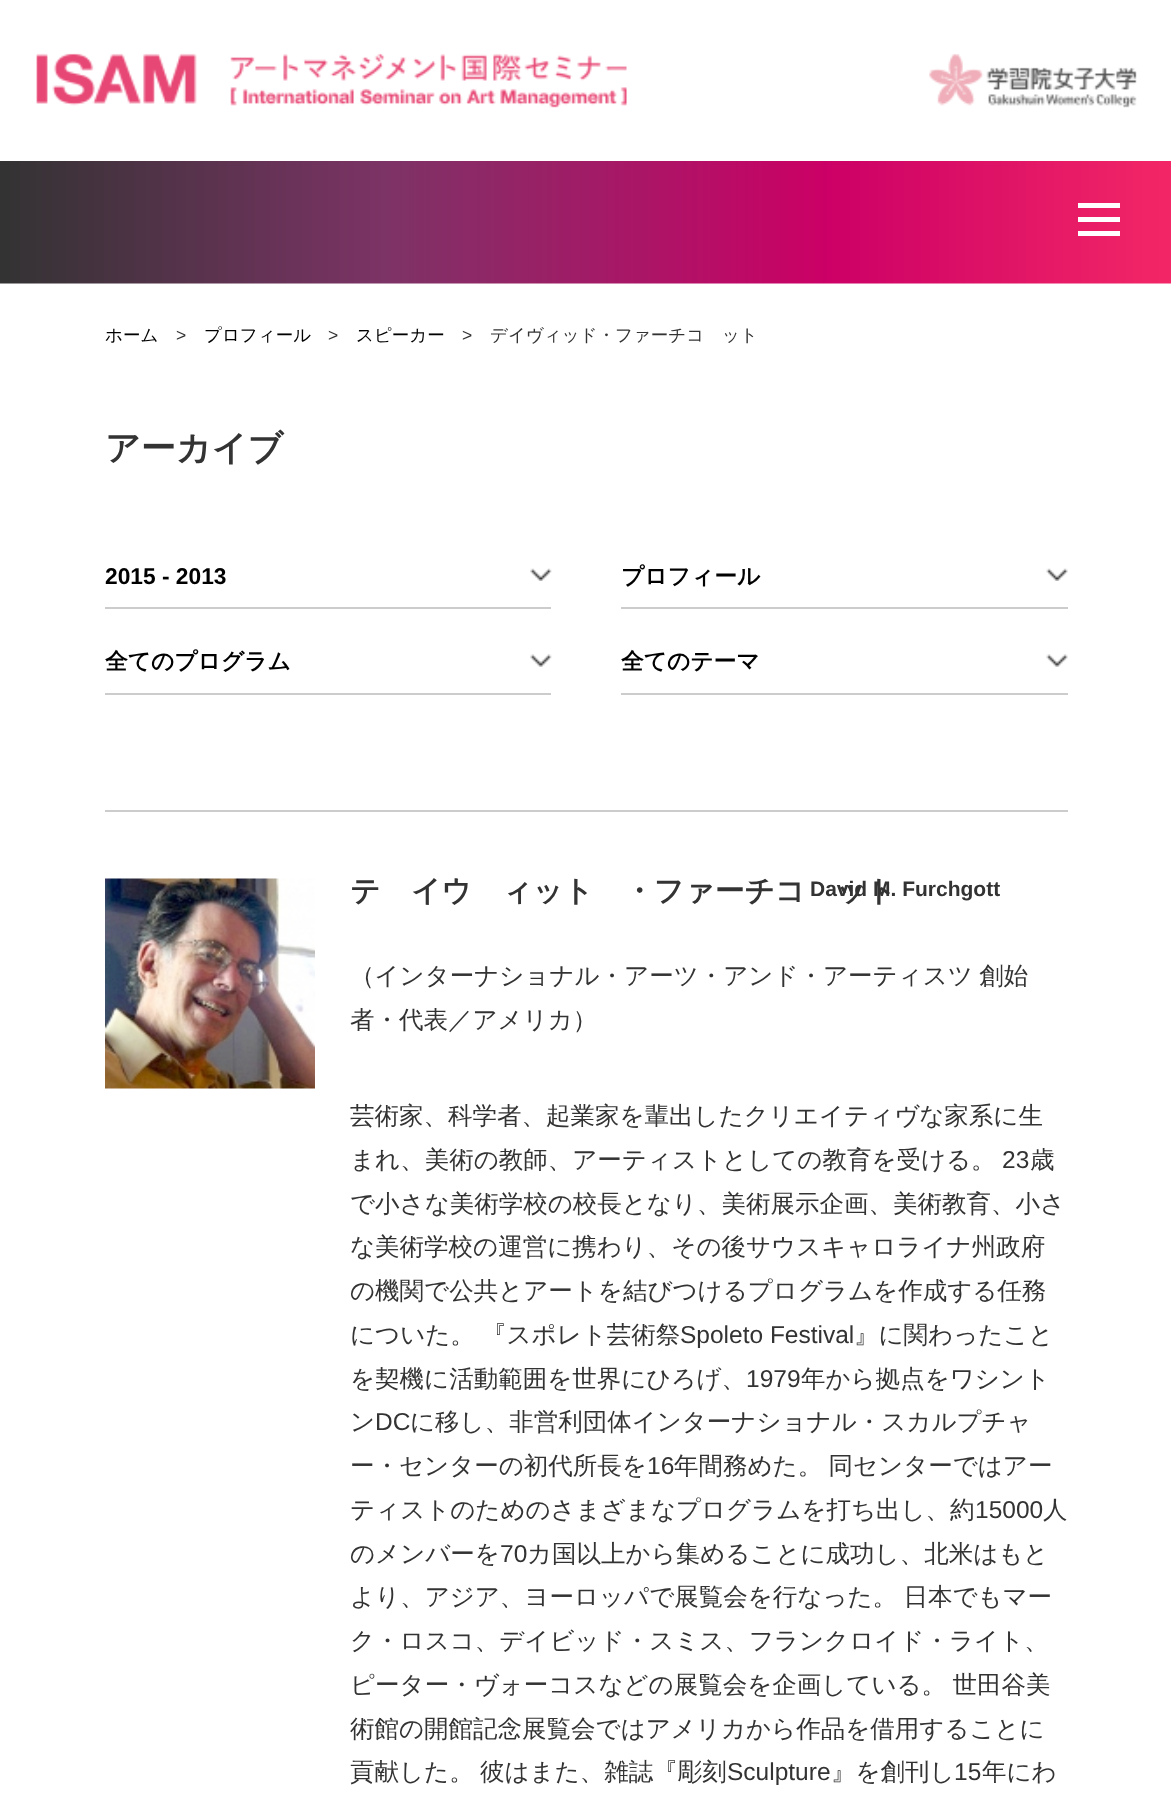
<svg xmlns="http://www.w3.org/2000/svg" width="1171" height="1808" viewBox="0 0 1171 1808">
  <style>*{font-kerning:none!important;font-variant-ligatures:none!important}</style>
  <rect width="100%" height="100%" fill="rgb(255,255,255)"/>
  <image x="36" y="53" width="591" height="55" href="pic1.png"/>
  <image x="929" y="53" width="208" height="55" href="pic2.png"/>
  <image x="0" y="161" width="1171" height="123" href="pic3.png"/>
  <rect x="1078" y="203" width="42" height="5" fill="rgb(255,255,255)"/>
  <rect x="1078" y="217" width="42" height="5" fill="rgb(255,255,255)"/>
  <rect x="1078" y="231" width="42" height="5" fill="rgb(255,255,255)"/>
  <text x="105" y="341" font-family="WenQuanYi Zen Hei" font-size="17.5" font-weight="500" fill="rgb(0,0,0)">ホーム</text>
  <text x="176" y="341" font-family="Liberation Sans" font-size="17.5" fill="rgb(51,51,51)">&gt;</text>
  <text x="204" y="341" font-family="WenQuanYi Zen Hei" font-size="17.5" font-weight="500" fill="rgb(0,0,0)">プロフィール</text>
  <text x="328" y="341" font-family="Liberation Sans" font-size="17.5" fill="rgb(51,51,51)">&gt;</text>
  <text x="356" y="341" font-family="WenQuanYi Zen Hei" font-size="17.5" font-weight="500" fill="rgb(0,0,0)">スピーカー</text>
  <text x="462" y="341" font-family="Liberation Sans" font-size="17.5" fill="rgb(51,51,51)">&gt;</text>
  <text x="490" y="341" font-family="WenQuanYi Zen Hei" font-size="17.5" font-weight="500" fill="rgb(51,51,51)">デイヴィッド・ファーチゴット</text>
  <text x="105" y="460" font-family="WenQuanYi Zen Hei" font-size="35" font-weight="bold" fill="rgb(51,51,51)">アーカイブ</text>
  <rect x="105" y="607" width="446" height="2" fill="rgb(204,204,204)"/>
  <image x="530" y="568" width="22" height="13" href="pic4.png"/>
  <text x="105" y="584" font-family="Liberation Sans" font-size="22.75" font-weight="bold" fill="rgb(0,0,0)">2015 - 2013</text>
  <rect x="621" y="607" width="447" height="2" fill="rgb(204,204,204)"/>
  <image x="1046" y="568" width="22" height="13" href="pic5.png"/>
  <text x="621" y="584" font-family="WenQuanYi Zen Hei" font-size="22.75" font-weight="bold" fill="rgb(0,0,0)">プロフィール</text>
  <rect x="105" y="693" width="446" height="2" fill="rgb(204,204,204)"/>
  <image x="530" y="654" width="22" height="13" href="pic6.png"/>
  <text x="105" y="669" font-family="WenQuanYi Zen Hei" font-size="22.75" font-weight="bold" fill="rgb(0,0,0)">全てのプログラム</text>
  <rect x="621" y="693" width="447" height="2" fill="rgb(204,204,204)"/>
  <image x="1046" y="654" width="22" height="13" href="pic7.png"/>
  <text x="621" y="669" font-family="WenQuanYi Zen Hei" font-size="22.75" font-weight="bold" fill="rgb(0,0,0)">全てのテーマ</text>
  <rect x="105" y="810" width="963" height="2" fill="rgb(204,204,204)"/>
  <image x="105" y="878" width="210" height="211" href="pic8.png"/>
  <text x="350" y="901" font-family="WenQuanYi Zen Hei" font-size="29.75" font-weight="bold" fill="rgb(51,51,51)">デイヴィッド・ファーチゴット</text>
  <text x="810" y="896" font-family="Liberation Sans" font-size="21" font-weight="bold" fill="rgb(51,51,51)">David M. Furchgott</text>
  <g font-family="WenQuanYi Zen Hei" font-size="24.5" font-weight="500" fill="rgb(51,51,51)">
    <text>
      <tspan x="350" y="984" word-spacing="-1">（インターナショナル・アーツ・アンド・アーティスツ 創始</tspan>
      <tspan x="350" y="1028">者・代表／アメリカ）</tspan>
    </text>
    <text>
      <tspan x="350" y="1124">芸術家、科学者、起業家を輩出したクリエイティヴな家系に生</tspan>
      <tspan x="350" y="1168">まれ、美術の教師、アーティストとしての教育を受ける。</tspan>
    </text>
  </g>
  <text x="1002" y="1168" font-family="Liberation Sans" font-size="24.5" fill="rgb(51,51,51)">23</text>
  <g font-family="WenQuanYi Zen Hei" font-size="24.5" font-weight="500" fill="rgb(51,51,51)">
    <text x="1030" y="1168">歳</text>
    <text>
      <tspan x="350" y="1212">で小さな美術学校の校長となり、美術展示企画、美術教育、小さ</tspan>
      <tspan x="350" y="1255">な美術学校の運営に携わり、その後サウスキャロライナ州政府</tspan>
      <tspan x="350" y="1299">の機関で公共とアートを結びつけるプログラムを作成する任務</tspan>
      <tspan x="350" y="1343">についた。</tspan>
    </text>
    <text x="482" y="1343">『スポレト芸術祭</text>
  </g>
  <text x="680" y="1343" font-family="Liberation Sans" font-size="24.5" fill="rgb(51,51,51)">Spoleto Festival</text>
  <g font-family="WenQuanYi Zen Hei" font-size="24.5" font-weight="500" fill="rgb(51,51,51)">
    <text x="854" y="1343">』に関わったこと</text>
    <text x="350" y="1387">を契機に活動範囲を世界にひろげ、</text>
  </g>
  <text x="746" y="1387" font-family="Liberation Sans" font-size="24.5" fill="rgb(51,51,51)">1979</text>
  <g font-family="WenQuanYi Zen Hei" font-size="24.5" font-weight="500" fill="rgb(51,51,51)">
    <text x="801" y="1387">年から拠点をワシント</text>
    <text x="350" y="1430">ン</text>
  </g>
  <text x="375" y="1430" font-family="Liberation Sans" font-size="24.5" fill="rgb(51,51,51)">DC</text>
  <g font-family="WenQuanYi Zen Hei" font-size="24.5" font-weight="500" fill="rgb(51,51,51)">
    <text x="410" y="1430">に移し、非営利団体インターナショナル・スカルプチャ</text>
    <text x="350" y="1474">ー・センターの初代所長を</text>
  </g>
  <text x="647" y="1474" font-family="Liberation Sans" font-size="24.5" fill="rgb(51,51,51)">16</text>
  <g font-family="WenQuanYi Zen Hei" font-size="24.5" font-weight="500" fill="rgb(51,51,51)">
    <text x="674" y="1474" word-spacing="-1">年間務めた。 同センターではアー</text>
    <text x="350" y="1518">ティストのためのさまざまなプログラムを打ち出し、約</text>
  </g>
  <text x="975" y="1518" font-family="Liberation Sans" font-size="24.5" fill="rgb(51,51,51)">15000</text>
  <g font-family="WenQuanYi Zen Hei" font-size="24.5" font-weight="500" fill="rgb(51,51,51)">
    <text x="1043" y="1518">人</text>
    <text x="350" y="1562">のメンバーを</text>
  </g>
  <text x="500" y="1562" font-family="Liberation Sans" font-size="24.5" fill="rgb(51,51,51)">70</text>
  <g font-family="WenQuanYi Zen Hei" font-size="24.5" font-weight="500" fill="rgb(51,51,51)">
    <text x="527" y="1562">カ国以上から集めることに成功し、北米はもと</text>
    <text>
      <tspan x="350" y="1605" word-spacing="-1">より、アジア、ヨーロッパで展覧会を行なった。 日本でもマー</tspan>
      <tspan x="350" y="1649">ク・ロスコ、デイビッド・スミス、フランクロイド・ライト、</tspan>
      <tspan x="350" y="1693" word-spacing="-1">ピーター・ヴォーコスなどの展覧会を企画している。 世田谷美</tspan>
      <tspan x="350" y="1737">術館の開館記念展覧会ではアメリカから作品を借用することに</tspan>
      <tspan x="350" y="1780" word-spacing="-1">貢献した。 彼はまた、雑誌『彫刻</tspan>
    </text>
  </g>
  <text x="727" y="1780" font-family="Liberation Sans" font-size="24.5" fill="rgb(51,51,51)">Sculpture</text>
  <text x="831" y="1780" font-family="WenQuanYi Zen Hei" font-size="24.5" font-weight="500" fill="rgb(51,51,51)">』を創刊し</text>
  <text x="954" y="1780" font-family="Liberation Sans" font-size="24.5" fill="rgb(51,51,51)">15</text>
  <text x="982" y="1780" font-family="WenQuanYi Zen Hei" font-size="24.5" font-weight="500" fill="rgb(51,51,51)">年にわ</text>
</svg>
